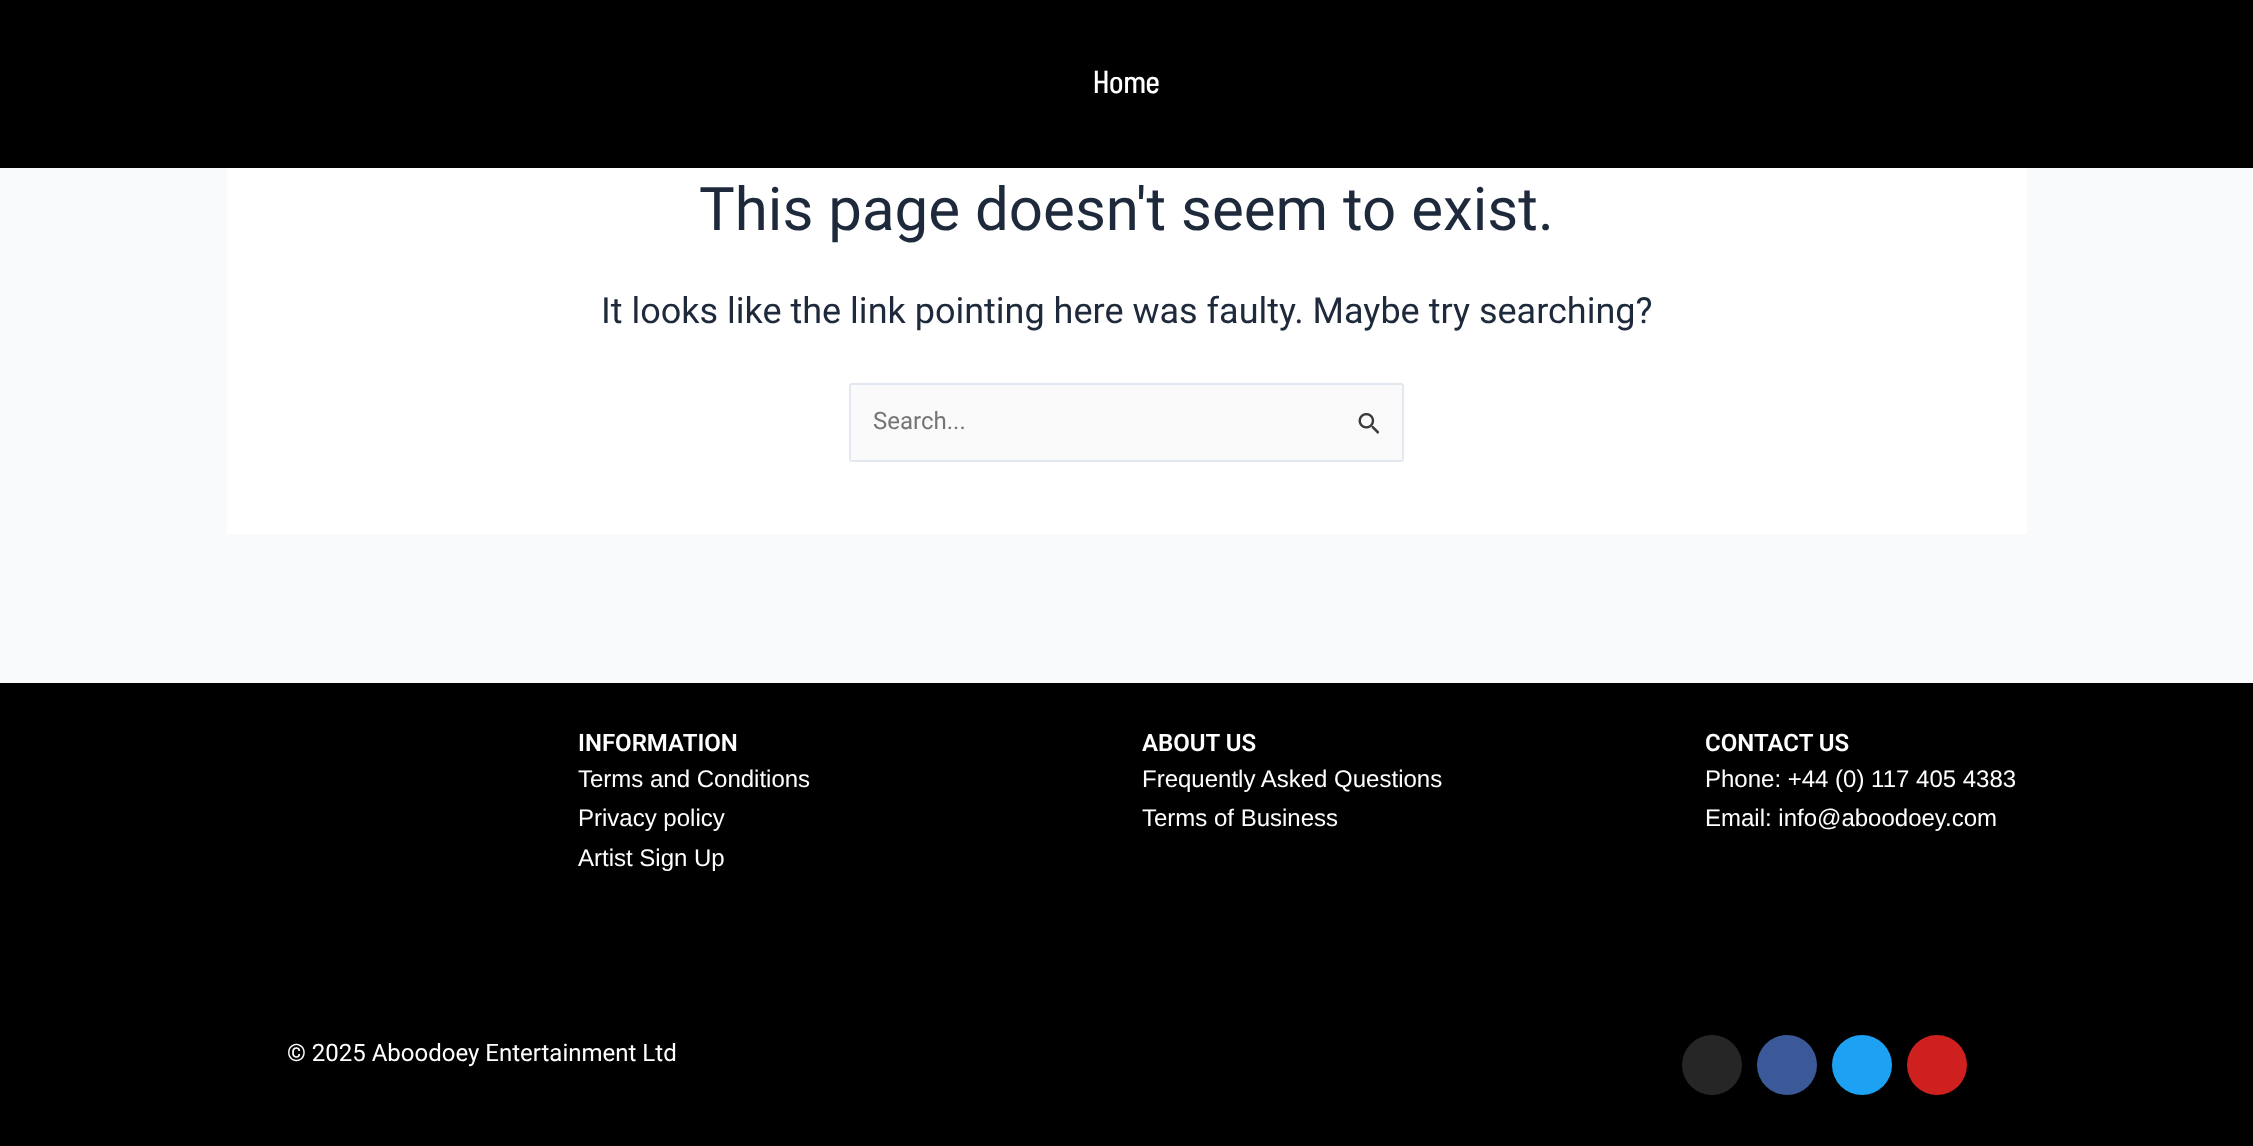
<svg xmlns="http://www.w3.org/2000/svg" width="2253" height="1146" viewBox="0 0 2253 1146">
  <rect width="100%" height="100%" fill="rgb(249,250,251)"/>
  <rect x="0" y="0" width="2253" height="168" fill="rgb(0,0,0)"/>
  <text x="1093" y="93" font-family="Akshar" font-size="31.5" font-weight="300" fill="rgb(255,255,255)">Home</text>
  <rect x="227" y="168" width="1800" height="366" fill="rgb(255,255,255)"/>
  <text x="699" y="230" font-family="Roboto" font-size="60" fill="rgb(30,41,59)">This page doesn't seem to exist.</text>
  <text x="601" y="323" font-family="Roboto" font-size="36" fill="rgb(30,41,59)">It looks like the link pointing here was faulty. Maybe try searching?</text>
  <rect x="850" y="384" width="553" height="77" rx="2" fill="rgb(250,250,250)" stroke="rgb(226,232,240)" stroke-width="2"/>
  <text x="873" y="429" font-family="Roboto" font-size="24" fill="rgb(117,117,117)">Search...</text>
  <image x="1358" y="413" width="21" height="21" href="pic1.png"/>
  <rect x="0" y="683" width="2253" height="463" fill="rgb(0,0,0)"/>
  <text x="578" y="751" font-family="Roboto" font-size="24" font-weight="600" fill="rgb(255,255,255)">INFORMATION</text>
  <g font-family="Liberation Sans" font-size="24" fill="rgb(255,255,255)">
    <text>
      <tspan x="578" y="787">Terms and Conditions</tspan>
      <tspan x="578" y="826">Privacy policy</tspan>
      <tspan x="578" y="866">Artist Sign Up</tspan>
    </text>
  </g>
  <text x="1142" y="751" font-family="Roboto" font-size="24" font-weight="600" fill="rgb(255,255,255)">ABOUT US</text>
  <g font-family="Liberation Sans" font-size="24" fill="rgb(255,255,255)">
    <text>
      <tspan x="1142" y="787">Frequently Asked Questions</tspan>
      <tspan x="1142" y="826">Terms of Business</tspan>
    </text>
  </g>
  <text x="1705" y="751" font-family="Roboto" font-size="24" font-weight="600" fill="rgb(255,255,255)">CONTACT US</text>
  <g font-family="Liberation Sans" font-size="24" fill="rgb(255,255,255)">
    <text>
      <tspan x="1705" y="787">Phone: +44 (0) 117 405 4383</tspan>
      <tspan x="1705" y="826">Email: info@aboodoey.com</tspan>
    </text>
  </g>
  <text x="287" y="1061" font-family="Roboto" font-size="24" fill="rgb(255,255,255)">© 2025 Aboodoey Entertainment Ltd</text>
  <circle cx="1712" cy="1065" r="30" fill="rgb(38,38,38)"/>
  <circle cx="1787" cy="1065" r="30" fill="rgb(59,89,152)"/>
  <circle cx="1862" cy="1065" r="30" fill="rgb(29,161,242)"/>
  <circle cx="1937" cy="1065" r="30" fill="rgb(205,32,31)"/>
</svg>
